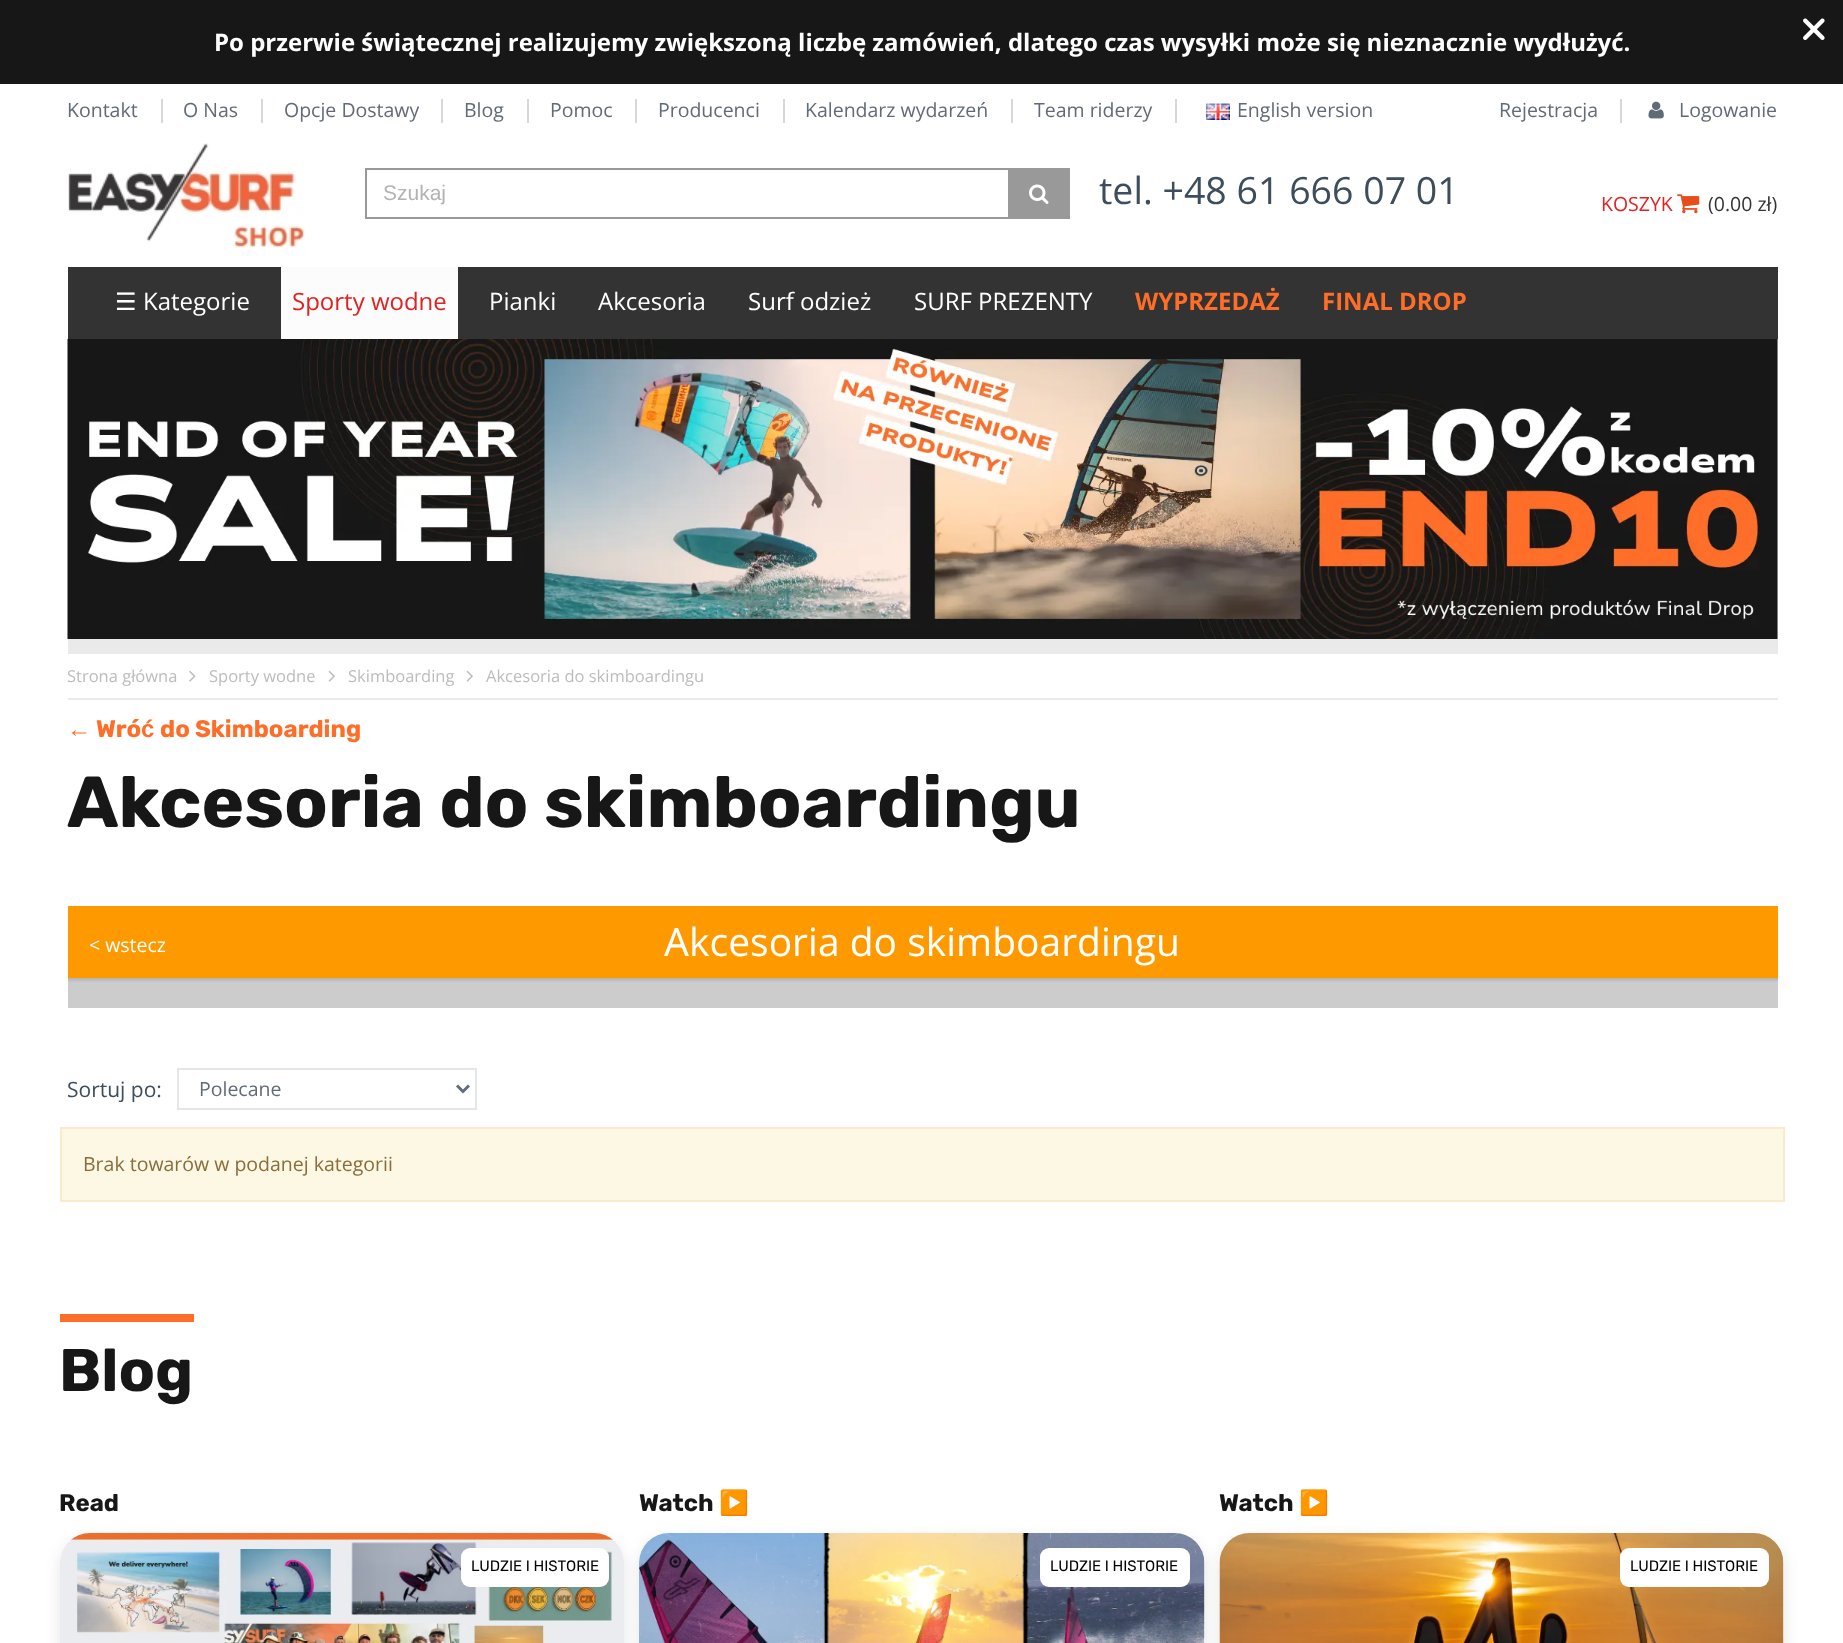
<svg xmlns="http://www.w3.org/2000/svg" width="1843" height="1643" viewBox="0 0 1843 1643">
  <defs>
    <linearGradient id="g1" gradientUnits="userSpaceOnUse" x1="923" y1="978" x2="923" y2="1008"><stop offset="0" stop-color="rgb(178,178,178)"/><stop offset="0.16" stop-color="rgb(204,204,204)"/><stop offset="0.89" stop-color="rgb(204,204,204)"/></linearGradient>
  </defs>
  <rect width="100%" height="100%" fill="rgb(255,255,255)"/>
  <rect x="0" y="0" width="1843" height="84" fill="rgb(23,23,23)"/>
  <image x="1803" y="18" width="22" height="22" href="pic1.png"/>
  <text x="214" y="51" font-family="Open Sans" font-size="24" font-weight="bold" fill="rgb(255,255,255)">Po przerwie świątecznej realizujemy zwiększoną liczbę zamówień, dlatego czas wysyłki może się nieznacznie wydłużyć.</text>
  <rect x="161" y="99" width="2" height="24" fill="rgb(216,216,216)"/>
  <text x="67" y="117" font-family="Open Sans" font-size="19.5" fill="rgb(97,107,118)">Kontakt</text>
  <rect x="261" y="99" width="2" height="24" fill="rgb(216,216,216)"/>
  <text x="183" y="117" font-family="Open Sans" font-size="19.5" fill="rgb(97,107,118)">O Nas</text>
  <rect x="441" y="99" width="2" height="24" fill="rgb(216,216,216)"/>
  <text x="284" y="117" font-family="Open Sans" font-size="19.5" fill="rgb(97,107,118)">Opcje Dostawy</text>
  <rect x="527" y="99" width="2" height="24" fill="rgb(216,216,216)"/>
  <text x="464" y="117" font-family="Open Sans" font-size="19.5" fill="rgb(97,107,118)">Blog</text>
  <rect x="635" y="99" width="2" height="24" fill="rgb(216,216,216)"/>
  <text x="550" y="117" font-family="Open Sans" font-size="19.5" fill="rgb(97,107,118)">Pomoc</text>
  <rect x="783" y="99" width="2" height="24" fill="rgb(216,216,216)"/>
  <text x="658" y="117" font-family="Open Sans" font-size="19.5" fill="rgb(97,107,118)">Producenci</text>
  <rect x="1011" y="99" width="2" height="24" fill="rgb(216,216,216)"/>
  <text x="805" y="117" font-family="Open Sans" font-size="19.5" fill="rgb(97,107,118)">Kalendarz wydarzeń</text>
  <rect x="1175" y="99" width="2" height="24" fill="rgb(216,216,216)"/>
  <text x="1034" y="117" font-family="Open Sans" font-size="19.5" fill="rgb(97,107,118)">Team riderzy</text>
  <image x="1206" y="103" width="24" height="17" href="pic2.png"/>
  <text x="1237" y="117" font-family="Open Sans" font-size="19.5" fill="rgb(97,107,118)">English version</text>
  <rect x="1620" y="99" width="2" height="24" fill="rgb(216,216,216)"/>
  <text x="1499" y="117" font-family="Open Sans" font-size="19.5" fill="rgb(97,107,118)">Rejestracja</text>
  <image x="1648" y="101" width="16" height="18" href="pic3.png"/>
  <text x="1679" y="117" font-family="Open Sans" font-size="19.5" fill="rgb(97,107,118)">Logowanie</text>
  <image x="68" y="143" width="237" height="105" href="pic4.png"/>
  <rect x="366" y="169" width="643" height="49" fill="none" stroke="rgb(153,153,153)" stroke-width="2"/>
  <text x="383" y="200" font-family="Liberation Sans" font-size="21" fill="rgb(179,179,179)">Szukaj</text>
  <rect x="1010" y="168" width="60" height="51" fill="rgb(153,153,153)"/>
  <image x="1029" y="184" width="20" height="20" href="pic5.png"/>
  <text x="1099" y="204" font-family="Open Sans" font-size="37.5" fill="rgb(62,77,92)">tel. +48 61 666 07 01</text>
  <text x="1601" y="211" font-family="Open Sans" font-size="19.5" fill="rgb(224,34,34)">KOSZYK</text>
  <image x="1677" y="194" width="23" height="20" href="pic6.png"/>
  <text x="1708" y="211" font-family="Open Sans" font-size="19.5" fill="rgb(51,51,51)">(0.00 zł)</text>
  <rect x="68" y="267" width="1710" height="72" fill="rgb(51,51,51)"/>
  <text x="115" y="310" font-family="DejaVu Sans" font-size="24" fill="rgb(255,255,255)">☰</text>
  <text x="143" y="310" font-family="Open Sans" font-size="24" fill="rgb(255,255,255)">Kategorie</text>
  <rect x="281" y="267" width="177" height="72" fill="rgb(252,252,252)"/>
  <text x="292" y="310" font-family="Open Sans" font-size="24" fill="rgb(224,34,34)">Sporty wodne</text>
  <g font-family="Open Sans" font-size="24" fill="rgb(255,255,255)">
    <text x="489" y="310">Pianki</text>
    <text x="598" y="310">Akcesoria</text>
    <text x="748" y="310">Surf odzież</text>
    <text x="914" y="310">SURF PREZENTY</text>
  </g>
  <g font-family="Open Sans" font-size="24" font-weight="bold" fill="rgb(255,110,41)">
    <text x="1135" y="310">WYPRZEDAŻ</text>
    <text x="1322" y="310">FINAL DROP</text>
  </g>
  <rect x="68" y="339" width="1710" height="315" fill="rgb(234,234,234)"/>
  <image x="67" y="339" width="1711" height="300" href="pic7.png"/>
  <rect x="68" y="698" width="1710" height="2" fill="rgb(234,234,234)"/>
  <text x="67" y="682" font-family="Open Sans" font-size="16.5" fill="rgb(188,188,188)">Strona główna</text>
  <image x="189" y="671" width="7" height="11" href="pic8.png"/>
  <text x="209" y="682" font-family="Open Sans" font-size="16.5" fill="rgb(188,188,188)">Sporty wodne</text>
  <image x="328" y="670" width="7" height="12" href="pic9.png"/>
  <text x="348" y="682" font-family="Open Sans" font-size="16.5" fill="rgb(188,188,188)">Skimboarding</text>
  <image x="466" y="670" width="7" height="12" href="pic9.png"/>
  <text x="486" y="682" font-family="Open Sans" font-size="16.5" fill="rgb(188,188,188)">Akcesoria do skimboardingu</text>
  <text x="67" y="737" font-family="Liberation Sans" font-size="24" font-weight="bold" fill="rgb(255,110,41)">←</text>
  <text x="96" y="737" font-family="Rubik" font-size="24" font-weight="bold" fill="rgb(255,110,41)">Wró</text>
  <text x="141" y="737" font-family="Liberation Sans" font-size="24" font-weight="bold" fill="rgb(255,110,41)">ć</text>
  <text x="160" y="737" font-family="Rubik" font-size="24" font-weight="bold" fill="rgb(255,110,41)">do Skimboarding</text>
  <text x="67" y="827" font-family="Rubik" font-size="72" font-weight="bold" fill="rgb(23,23,23)">Akcesoria do skimboardingu</text>
  <rect x="68" y="906" width="1710" height="72" fill="rgb(255,153,0)"/>
  <text x="89" y="952" font-family="Open Sans" font-size="19.5" fill="rgb(255,255,255)">&lt; wstecz</text>
  <text x="664" y="956" font-family="Noto Sans" font-size="39" fill="rgb(255,255,255)">A</text>
  <text x="689" y="956" font-family="Open Sans" font-size="39" fill="rgb(255,255,255)">kcesoria do skimboardingu</text>
  <rect x="68" y="978" width="1710" height="30" fill="url(#g1)"/>
  <text x="67" y="1097" font-family="Open Sans" font-size="21" fill="rgb(62,77,92)">Sortuj po:</text>
  <rect x="178" y="1069" width="298" height="40" fill="none" stroke="rgb(228,230,232)" stroke-width="2"/>
  <path d="M457 1085.5L463 1091.5L469 1085.5" fill="none" stroke="rgb(95,109,123)" stroke-width="3"/>
  <text x="199" y="1096" font-family="Open Sans" font-size="19.5" fill="rgb(97,107,118)">Polecane</text>
  <rect x="61" y="1128" width="1723" height="73" fill="rgb(252,248,227)" stroke="rgb(250,235,204)" stroke-width="2"/>
  <text x="83" y="1171" font-family="Open Sans" font-size="19.5" fill="rgb(138,109,59)">Brak towarów w podanej kategorii</text>
  <rect x="60" y="1314" width="134" height="8" fill="rgb(255,110,41)"/>
  <text x="59" y="1391" font-family="Rubik" font-size="60" font-weight="bold" fill="rgb(23,23,23)">Blog</text>
  <text x="59" y="1511" font-family="Rubik" font-size="24" font-weight="bold" fill="rgb(23,23,23)">Read</text>
  <rect x="60" y="1539" width="564" height="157" rx="30" fill="rgba(0,0,0,0.1)" filter="blur(7.5px)"/>
  <rect x="60" y="1533" width="564" height="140" rx="30" fill="rgb(255,255,255)"/>
  <image x="60" y="1533" width="564" height="110" href="pic10.png"/>
  <rect x="461" y="1548" width="148" height="39" rx="9" fill="rgb(255,255,255)"/>
  <text x="471" y="1571" font-family="Rubik" font-size="15" fill="rgb(0,0,0)">LUDZIE I HISTORIE</text>
  <text x="639" y="1511" font-family="Rubik" font-size="24" font-weight="bold" fill="rgb(23,23,23)">Watch</text>
  <text x="719" y="1511" font-family="Noto Color Emoji" font-size="24" font-weight="bold" fill="rgb(23,23,23)">▶️</text>
  <rect x="639" y="1539" width="566" height="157" rx="30" fill="rgba(0,0,0,0.1)" filter="blur(7.5px)"/>
  <rect x="639" y="1533" width="566" height="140" rx="30" fill="rgb(255,255,255)"/>
  <image x="639" y="1533" width="566" height="110" href="pic11.png"/>
  <rect x="1040" y="1548" width="150" height="39" rx="9" fill="rgb(255,255,255)"/>
  <text x="1050" y="1571" font-family="Rubik" font-size="15" fill="rgb(0,0,0)">LUDZIE I HISTORIE</text>
  <text x="1219" y="1511" font-family="Rubik" font-size="24" font-weight="bold" fill="rgb(23,23,23)">Watch</text>
  <text x="1299" y="1511" font-family="Noto Color Emoji" font-size="24" font-weight="bold" fill="rgb(23,23,23)">▶️</text>
  <rect x="1220" y="1539" width="564" height="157" rx="30" fill="rgba(0,0,0,0.1)" filter="blur(7.5px)"/>
  <rect x="1220" y="1533" width="564" height="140" rx="30" fill="rgb(255,255,255)"/>
  <image x="1219" y="1533" width="565" height="110" href="pic12.png"/>
  <rect x="1620" y="1548" width="149" height="39" rx="9" fill="rgb(255,255,255)"/>
  <text x="1630" y="1571" font-family="Rubik" font-size="15" fill="rgb(0,0,0)">LUDZIE I HISTORIE</text>
</svg>
